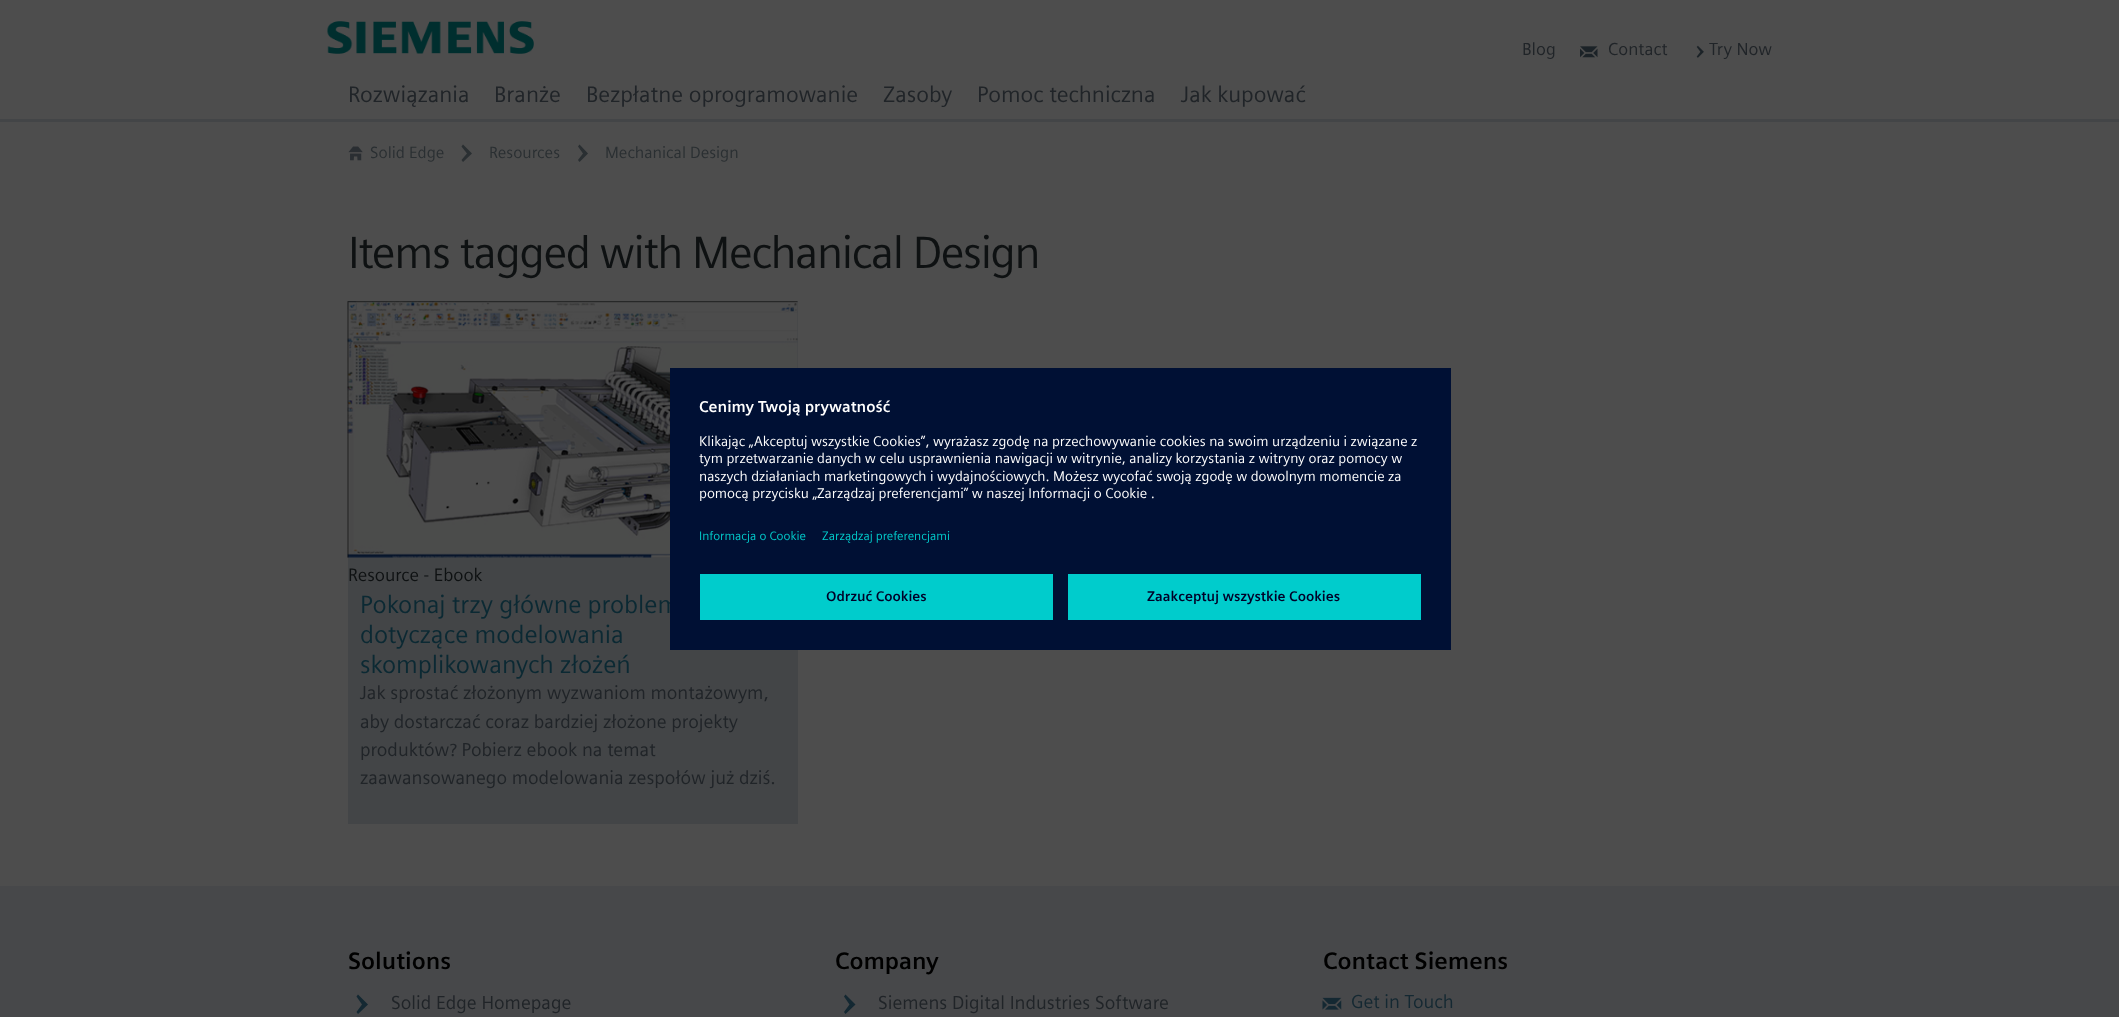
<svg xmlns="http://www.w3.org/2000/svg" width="2119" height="1017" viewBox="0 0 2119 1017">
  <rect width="100%" height="100%" fill="rgb(77,77,77)"/>
  <rect x="0" y="119" width="2119" height="3" fill="rgb(67,69,71)"/>
  <image x="327" y="21" width="207" height="33" href="pic1.png"/>
  <text x="1522" y="55" font-family="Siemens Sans" font-size="17.5" fill="rgb(32,36,40)">Blog</text>
  <image x="1580" y="46" width="18" height="12" href="pic2.png"/>
  <text x="1608" y="55" font-family="Siemens Sans" font-size="17.5" fill="rgb(32,36,40)">Contact</text>
  <image x="1696" y="45" width="8" height="13" href="pic3.png"/>
  <text x="1709" y="55" font-family="Siemens Sans" font-size="17.5" fill="rgb(32,36,40)">Try Now</text>
  <g font-family="Siemens Sans" font-size="22.5" fill="rgb(32,36,40)">
    <text x="348" y="102">Rozwiązania</text>
    <text x="494" y="102">Branże</text>
    <text x="586" y="102">Bezpłatne oprogramowanie</text>
    <text x="883" y="102">Zasoby</text>
    <text x="977" y="102">Pomoc techniczna</text>
    <text x="1181" y="102">Jak kupować</text>
  </g>
  <image x="348" y="146" width="15" height="15" href="pic4.png"/>
  <text x="370" y="158" font-family="Siemens Sans" font-size="16.25" fill="rgb(42,47,50)">Solid Edge</text>
  <path d="M463 144.5L461.5 146.5L467 153.5L461.5 160L463 162L472 153.5Z" fill="rgb(42,47,50)"/>
  <text x="489" y="158" font-family="Siemens Sans" font-size="16.25" fill="rgb(42,47,50)">Resources</text>
  <path d="M579.5 144.5L578 146.5L583 153.5L578 160L579.5 162L588 153.5Z" fill="rgb(42,47,50)"/>
  <text x="605" y="158" font-family="Siemens Sans" font-size="16.25" fill="rgb(42,47,50)">Mechanical Design</text>
  <text x="348" y="268" font-family="Siemens Sans" font-size="45" letter-spacing="-1.35" fill="rgb(14,17,18)">Items tagged with Mechanical Design</text>
  <rect x="348" y="301" width="450" height="523" fill="rgb(67,69,71)"/>
  <image x="347" y="301" width="451" height="257" href="pic5.png"/>
  <text x="348" y="581" font-family="Siemens Sans" font-size="18" fill="rgb(14,17,18)">Resource - Ebook</text>
  <g font-family="Siemens Sans" font-size="25" fill="rgb(11,41,51)">
    <text>
      <tspan x="360" y="613">Pokonaj trzy główne problem</tspan>
      <tspan x="360" y="643">dotyczące modelowania</tspan>
      <tspan x="360" y="673">skomplikowanych złożeń</tspan>
    </text>
  </g>
  <g font-family="Siemens Sans" font-size="18.75" fill="rgb(32,36,40)">
    <text>
      <tspan x="360" y="699">Jak sprostać złożonym wyzwaniom montażowym,</tspan>
      <tspan x="360" y="728">aby dostarczać coraz bardziej złożone projekty</tspan>
      <tspan x="360" y="756">produktów? Pobierz ebook na temat</tspan>
      <tspan x="360" y="784">zaawansowanego modelowania zespołów już dziś.</tspan>
    </text>
  </g>
  <rect x="0" y="886" width="2119" height="131" fill="rgb(71,72,74)"/>
  <text x="348" y="969" font-family="Siemens Sans" font-size="23.75" font-weight="bold" fill="rgb(0,0,0)">Solutions</text>
  <path d="M358 994.5L356.5 996.5L362 1004.5L356.5 1012L358 1014L368 1004.5Z" fill="rgb(20,40,50)"/>
  <text x="391" y="1009" font-family="Siemens Sans" font-size="18.75" fill="rgb(32,36,40)">Solid Edge Homepage</text>
  <text x="835" y="969" font-family="Siemens Sans" font-size="23.75" font-weight="bold" fill="rgb(0,0,0)">Company</text>
  <path d="M845.5 994.5L844 996.5L849.5 1004.5L844 1012L845.5 1014L855.5 1004.5Z" fill="rgb(20,40,50)"/>
  <text x="878" y="1009" font-family="Siemens Sans" font-size="18.75" fill="rgb(32,36,40)">Siemens Digital Industries Software</text>
  <text x="1323" y="969" font-family="Siemens Sans" font-size="23.75" font-weight="bold" fill="rgb(0,0,0)">Contact Siemens</text>
  <image x="1322" y="997" width="20" height="13" href="pic6.png"/>
  <text x="1351" y="1008" font-family="Siemens Sans" font-size="18.75" fill="rgb(20,40,50)">Get in Touch</text>
  <rect x="670" y="368" width="781" height="282" fill="rgb(0,16,52)"/>
  <text x="699" y="412" font-family="Siemens Sans" font-size="15.75" font-weight="bold" fill="rgb(255,255,255)">Cenimy Twoją prywatność</text>
  <g font-family="Siemens Sans" font-size="14.05" fill="rgb(255,255,255)">
    <text>
      <tspan x="699" y="446">Klikając „Akceptuj wszystkie Cookies”, wyrażasz zgodę na przechowywanie cookies na swoim urządzeniu i związane z</tspan>
      <tspan x="699" y="463">tym przetwarzanie danych w celu usprawnienia nawigacji w witrynie, analizy korzystania z witryny oraz pomocy w</tspan>
      <tspan x="699" y="481">naszych działaniach marketingowych i wydajnościowych. Możesz wycofać swoją zgodę w dowolnym momencie za</tspan>
      <tspan x="699" y="498">pomocą przycisku „Zarządzaj preferencjami” w naszej Informacji o Cookie .</tspan>
    </text>
  </g>
  <g font-family="Siemens Sans" font-size="12.25" fill="rgb(0,204,204)">
    <text x="699" y="540">Informacja o Cookie</text>
    <text x="822" y="540">Zarządzaj preferencjami</text>
  </g>
  <rect x="700" y="574" width="353" height="46" fill="rgb(0,204,204)"/>
  <text x="826" y="601" font-family="Siemens Sans" font-size="14.05" font-weight="bold" fill="rgb(0,0,40)">Odrzuć Cookies</text>
  <rect x="1068" y="574" width="353" height="46" fill="rgb(0,204,204)"/>
  <text x="1147" y="601" font-family="Siemens Sans" font-size="14.05" font-weight="bold" fill="rgb(0,0,40)">Zaakceptuj wszystkie Cookies</text>
</svg>
